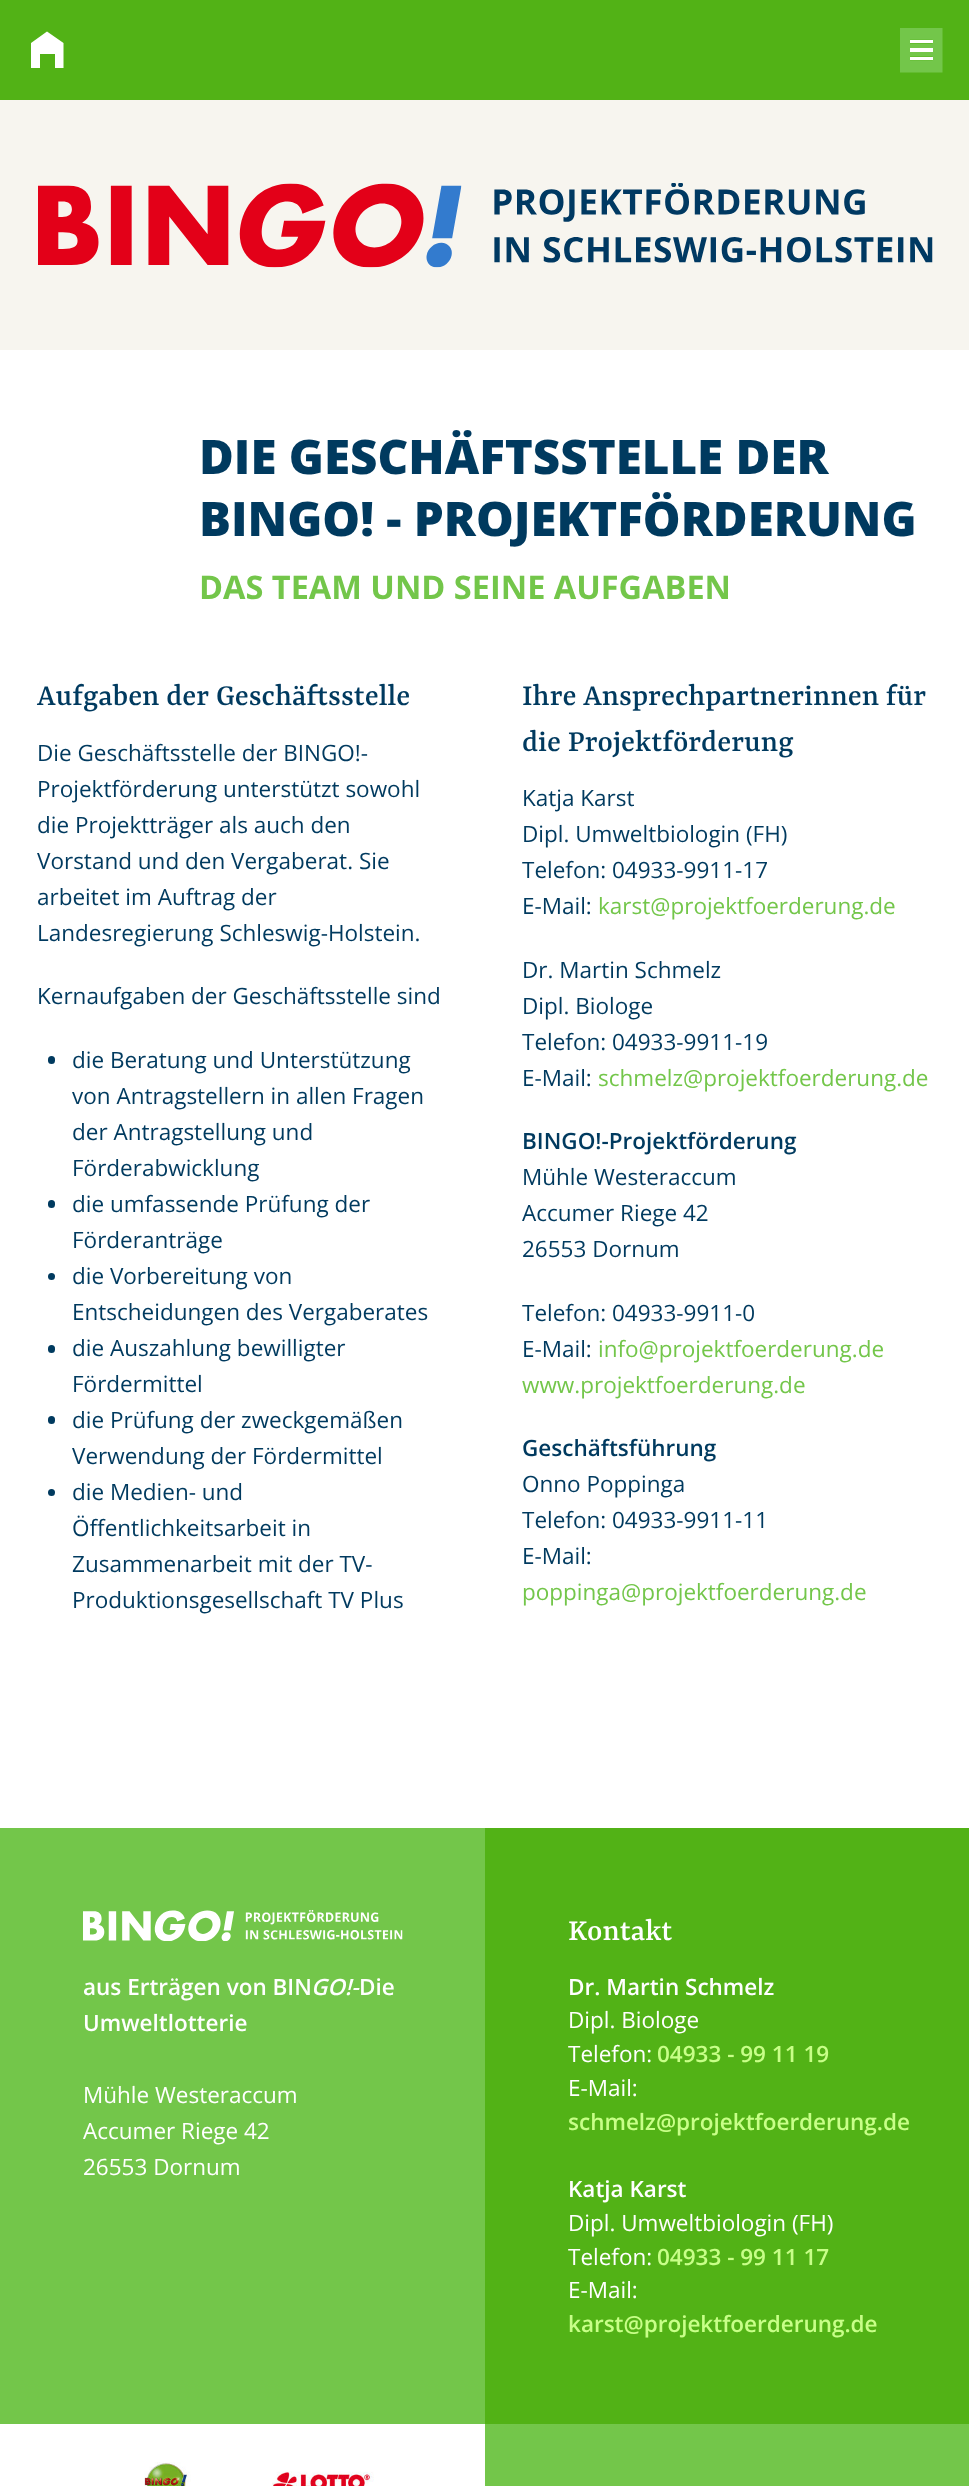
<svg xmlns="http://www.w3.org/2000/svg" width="969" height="2486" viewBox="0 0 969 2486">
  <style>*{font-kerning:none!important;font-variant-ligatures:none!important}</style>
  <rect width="100%" height="100%" fill="rgb(82,178,22)"/>
  <path d="M31 43L47 31.5L63.5 43V68H55V54H40V68H31Z" fill="rgb(255,255,255)"/>
  <image x="900" y="28" width="43" height="45" href="pic1.png"/>
  <rect x="0" y="100" width="969" height="250" fill="rgb(247,245,239)"/>
  <image x="38" y="183" width="895" height="85" href="pic2.png"/>
  <rect x="0" y="350" width="969" height="1478" fill="rgb(255,255,255)"/>
  <g font-family="Open Sans" font-size="47.5" font-weight="800" fill="rgb(0,58,95)">
    <text>
      <tspan x="199" y="474">DIE GESCHÄFTSSTELLE DER</tspan>
      <tspan x="199" y="536">BINGO! - PROJEKTFÖRDERUNG</tspan>
    </text>
  </g>
  <text x="199" y="599" font-family="Open Sans" font-size="32.5" font-weight="bold" fill="rgb(115,198,74)">DAS TEAM UND SEINE AUFGABEN</text>
  <text x="37" y="705" font-family="Rasa" font-size="32.5" font-weight="500" fill="rgb(0,58,95)">Aufgaben der Geschäftsstelle</text>
  <g font-family="Open Sans" font-size="22.5" fill="rgb(0,58,95)">
    <text>
      <tspan x="37" y="761">Die Geschäftsstelle der BINGO!-</tspan>
      <tspan x="37" y="797">Projektförderung unterstützt sowohl</tspan>
      <tspan x="37" y="833">die Projektträger als auch den</tspan>
      <tspan x="37" y="869">Vorstand und den Vergaberat. Sie</tspan>
      <tspan x="37" y="905">arbeitet im Auftrag der</tspan>
      <tspan x="37" y="941">Landesregierung Schleswig-Holstein.</tspan>
    </text>
    <text x="37" y="1004">Kernaufgaben der Geschäftsstelle sind</text>
  </g>
  <rect x="48" y="1056" width="7" height="8" rx="3.5" fill="rgb(0,58,95)"/>
  <g font-family="Open Sans" font-size="22.5" fill="rgb(0,58,95)">
    <text>
      <tspan x="72" y="1068">die Beratung und Unterstützung</tspan>
      <tspan x="72" y="1104">von Antragstellern in allen Fragen</tspan>
      <tspan x="72" y="1140">der Antragstellung und</tspan>
      <tspan x="72" y="1176">Förderabwicklung</tspan>
    </text>
  </g>
  <rect x="48" y="1200" width="7" height="8" rx="3.5" fill="rgb(0,58,95)"/>
  <g font-family="Open Sans" font-size="22.5" fill="rgb(0,58,95)">
    <text>
      <tspan x="72" y="1212">die umfassende Prüfung der</tspan>
      <tspan x="72" y="1248">Förderanträge</tspan>
    </text>
  </g>
  <circle cx="51.5" cy="1276.5" r="3.5" fill="rgb(0,58,95)"/>
  <g font-family="Open Sans" font-size="22.5" fill="rgb(0,58,95)">
    <text>
      <tspan x="72" y="1284">die Vorbereitung von</tspan>
      <tspan x="72" y="1320">Entscheidungen des Vergaberates</tspan>
    </text>
  </g>
  <rect x="48" y="1345" width="7" height="8" rx="3.5" fill="rgb(0,58,95)"/>
  <g font-family="Open Sans" font-size="22.5" fill="rgb(0,58,95)">
    <text>
      <tspan x="72" y="1356">die Auszahlung bewilligter</tspan>
      <tspan x="72" y="1392">Fördermittel</tspan>
    </text>
  </g>
  <rect x="48" y="1416" width="7" height="8" rx="3.5" fill="rgb(0,58,95)"/>
  <g font-family="Open Sans" font-size="22.5" fill="rgb(0,58,95)">
    <text>
      <tspan x="72" y="1428">die Prüfung der zweckgemäßen</tspan>
      <tspan x="72" y="1464">Verwendung der Fördermittel</tspan>
    </text>
  </g>
  <circle cx="51.5" cy="1492.5" r="3.5" fill="rgb(0,58,95)"/>
  <g font-family="Open Sans" font-size="22.5" fill="rgb(0,58,95)">
    <text>
      <tspan x="72" y="1500">die Medien- und</tspan>
      <tspan x="72" y="1536">Öffentlichkeitsarbeit in</tspan>
      <tspan x="72" y="1572">Zusammenarbeit mit der TV-</tspan>
      <tspan x="72" y="1608">Produktionsgesellschaft TV Plus</tspan>
    </text>
  </g>
  <g font-family="Rasa" font-size="32.5" font-weight="500" fill="rgb(0,58,95)">
    <text>
      <tspan x="522" y="705">Ihre Ansprechpartnerinnen für</tspan>
      <tspan x="522" y="751">die Projektförderung</tspan>
    </text>
  </g>
  <g font-family="Open Sans" font-size="22.5" fill="rgb(0,58,95)">
    <text>
      <tspan x="522" y="806">Katja Karst</tspan>
      <tspan x="522" y="842">Dipl. Umweltbiologin (FH)</tspan>
      <tspan x="522" y="878">Telefon: 04933-9911-17</tspan>
      <tspan x="522" y="914">E-Mail:</tspan>
    </text>
  </g>
  <text x="598" y="914" font-family="Open Sans" font-size="22.5" fill="rgb(115,198,74)">karst@projektfoerderung.de</text>
  <g font-family="Open Sans" font-size="22.5" fill="rgb(0,58,95)">
    <text>
      <tspan x="522" y="978">Dr. Martin Schmelz</tspan>
      <tspan x="522" y="1014">Dipl. Biologe</tspan>
      <tspan x="522" y="1050">Telefon: 04933-9911-19</tspan>
      <tspan x="522" y="1086">E-Mail:</tspan>
    </text>
  </g>
  <text x="598" y="1086" font-family="Open Sans" font-size="22.5" fill="rgb(115,198,74)">schmelz@projektfoerderung.de</text>
  <text x="522" y="1149" font-family="Open Sans" font-size="22.5" font-weight="600" fill="rgb(0,58,95)">BINGO!-Projektförderung</text>
  <g font-family="Open Sans" font-size="22.5" fill="rgb(0,58,95)">
    <text>
      <tspan x="522" y="1185">Mühle Westeraccum</tspan>
      <tspan x="522" y="1221">Accumer Riege 42</tspan>
      <tspan x="522" y="1257">26553 Dornum</tspan>
    </text>
    <text>
      <tspan x="522" y="1321">Telefon: 04933-9911-0</tspan>
      <tspan x="522" y="1357">E-Mail:</tspan>
    </text>
  </g>
  <g font-family="Open Sans" font-size="22.5" fill="rgb(115,198,74)">
    <text x="598" y="1357">info@projektfoerderung.de</text>
    <text x="522" y="1393">www.projektfoerderung.de</text>
  </g>
  <text x="522" y="1456" font-family="Open Sans" font-size="22.5" font-weight="600" fill="rgb(0,58,95)">Geschäftsführung</text>
  <g font-family="Open Sans" font-size="22.5" fill="rgb(0,58,95)">
    <text>
      <tspan x="522" y="1492">Onno Poppinga</tspan>
      <tspan x="522" y="1528">Telefon: 04933-9911-11</tspan>
      <tspan x="522" y="1564">E-Mail:</tspan>
    </text>
  </g>
  <text x="522" y="1600" font-family="Open Sans" font-size="22.5" fill="rgb(115,198,74)">poppinga@projektfoerderung.de</text>
  <rect x="0" y="1828" width="485" height="596" fill="rgb(115,198,74)"/>
  <image x="83" y="1910" width="320" height="31" href="pic3.png"/>
  <text x="83" y="1995" font-family="Open Sans" font-size="22.5" font-weight="600" fill="rgb(255,255,255)">aus Erträgen von BIN</text>
  <text x="311" y="1995" font-family="Open Sans" font-size="22.5" font-weight="600" font-style="italic" fill="rgb(255,255,255)">GO!-</text>
  <g font-family="Open Sans" font-size="22.5" font-weight="600" fill="rgb(255,255,255)">
    <text x="359" y="1995">Die</text>
    <text x="83" y="2031">Umweltlotterie</text>
  </g>
  <g font-family="Open Sans" font-size="22.5" fill="rgb(255,255,255)">
    <text>
      <tspan x="83" y="2103">Mühle Westeraccum</tspan>
      <tspan x="83" y="2139">Accumer Riege 42</tspan>
      <tspan x="83" y="2175">26553 Dornum</tspan>
    </text>
  </g>
  <text x="568" y="1940" font-family="Rasa" font-size="32.5" font-weight="500" fill="rgb(255,255,255)">Kontakt</text>
  <text x="568" y="1995" font-family="Open Sans" font-size="22.5" font-weight="600" fill="rgb(255,255,255)">Dr. Martin Schmelz</text>
  <g font-family="Open Sans" font-size="22.5" fill="rgb(255,255,255)">
    <text>
      <tspan x="568" y="2028">Dipl. Biologe</tspan>
      <tspan x="568" y="2062">Telefon:</tspan>
    </text>
  </g>
  <text x="657" y="2062" font-family="Open Sans" font-size="22.5" font-weight="600" fill="rgb(200,255,136)">04933 - 99 11 19</text>
  <text x="568" y="2096" font-family="Open Sans" font-size="22.5" fill="rgb(255,255,255)">E-Mail:</text>
  <text x="568" y="2130" font-family="Open Sans" font-size="22.5" font-weight="600" fill="rgb(200,255,136)">schmelz@projektfoerderung.de</text>
  <text x="568" y="2197" font-family="Open Sans" font-size="22.5" font-weight="600" fill="rgb(255,255,255)">Katja Karst</text>
  <g font-family="Open Sans" font-size="22.5" fill="rgb(255,255,255)">
    <text>
      <tspan x="568" y="2231">Dipl. Umweltbiologin (FH)</tspan>
      <tspan x="568" y="2265">Telefon:</tspan>
    </text>
  </g>
  <text x="657" y="2265" font-family="Open Sans" font-size="22.5" font-weight="600" fill="rgb(200,255,136)">04933 - 99 11 17</text>
  <text x="568" y="2298" font-family="Open Sans" font-size="22.5" fill="rgb(255,255,255)">E-Mail:</text>
  <text x="568" y="2332" font-family="Open Sans" font-size="22.5" font-weight="600" fill="rgb(200,255,136)">karst@projektfoerderung.de</text>
  <rect x="0" y="2424" width="485" height="62" fill="rgb(255,255,255)"/>
  <image x="144" y="2462" width="47" height="24" href="pic4.png"/>
  <image x="272" y="2471" width="102" height="15" href="pic5.png"/>
  <rect x="485" y="2424" width="484" height="62" fill="rgb(115,198,74)"/>
</svg>
